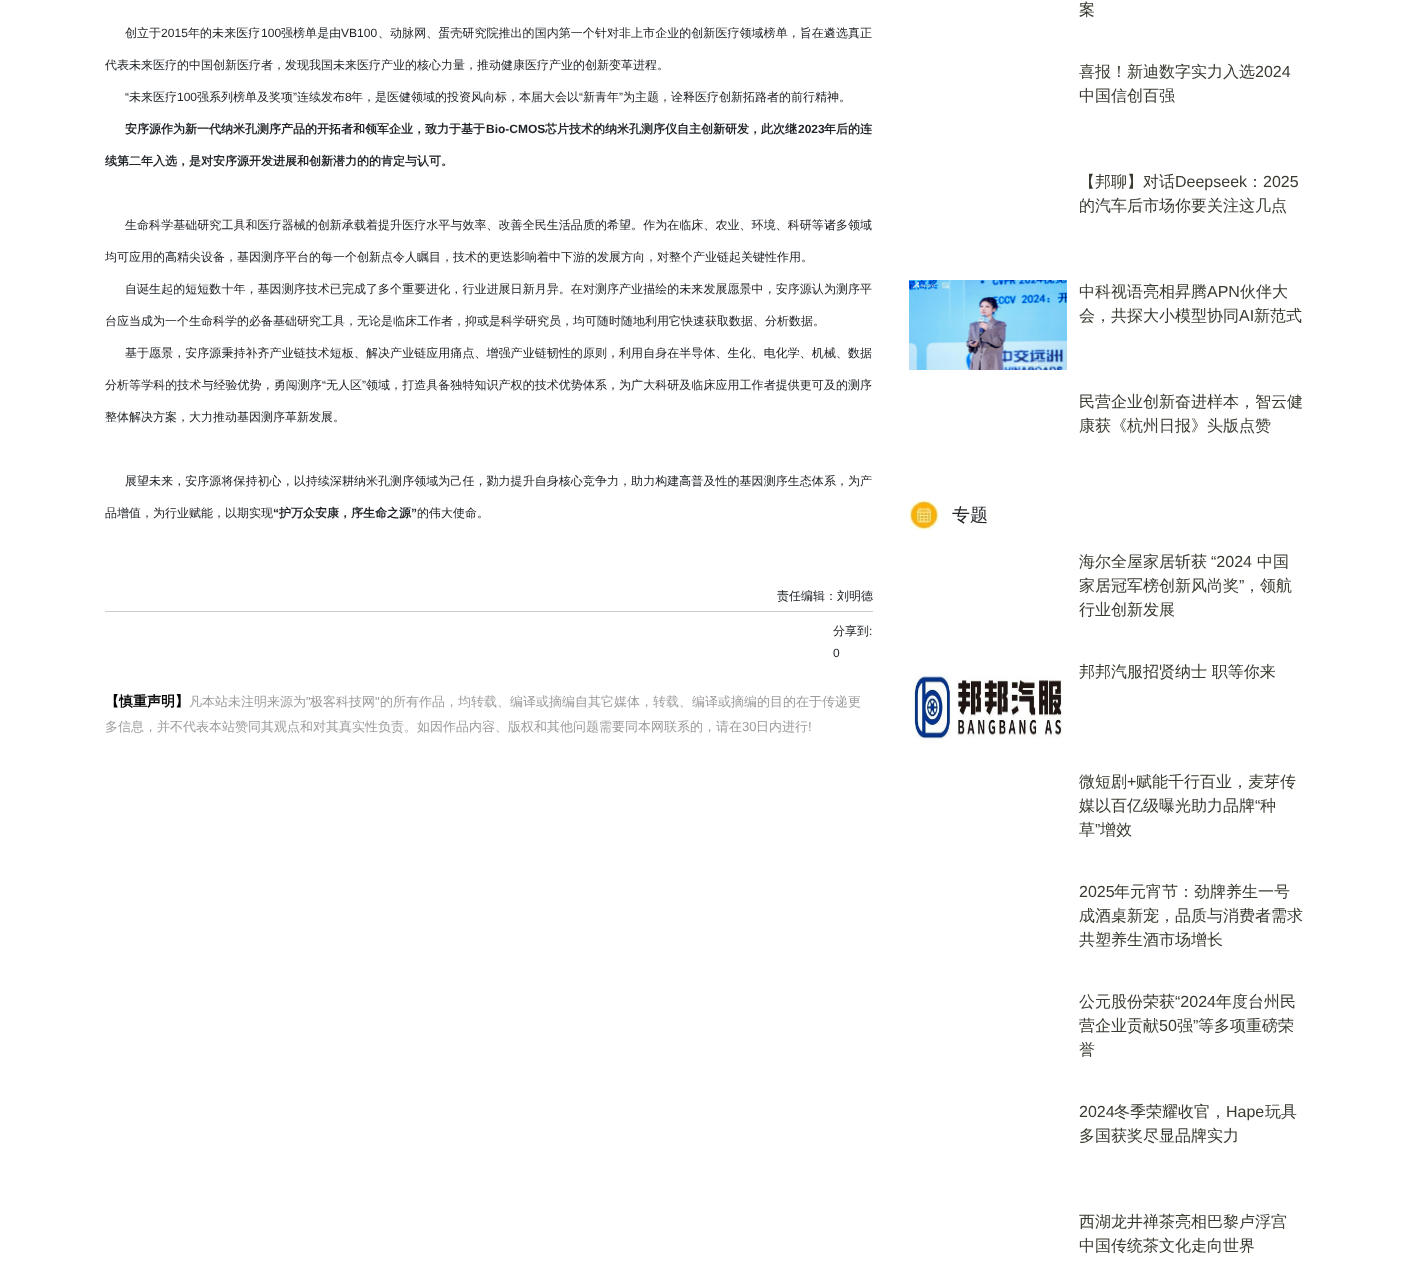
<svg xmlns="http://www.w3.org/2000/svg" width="1409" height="1276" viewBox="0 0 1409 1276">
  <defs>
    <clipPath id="clip1"><rect x="105" y="0" width="768" height="581"/></clipPath>
  </defs>
  <rect width="100%" height="100%" fill="rgb(255,255,255)"/>
  <text x="125" y="37" font-family="WenQuanYi Zen Hei" font-size="12" font-weight="500" letter-spacing="0.05" fill="rgb(33,37,41)">创立于</text>
  <text x="161" y="37" font-family="Liberation Sans" font-size="12" letter-spacing="0.05" fill="rgb(33,37,41)">2015</text>
  <text x="188" y="37" font-family="WenQuanYi Zen Hei" font-size="12" font-weight="500" letter-spacing="0.05" fill="rgb(33,37,41)">年的未来医疗</text>
  <text x="261" y="37" font-family="Liberation Sans" font-size="12" letter-spacing="0.05" fill="rgb(33,37,41)">100</text>
  <text x="281" y="37" font-family="WenQuanYi Zen Hei" font-size="12" font-weight="500" letter-spacing="0.05" fill="rgb(33,37,41)">强榜单是由</text>
  <text x="341" y="37" font-family="Liberation Sans" font-size="12" letter-spacing="0.05" fill="rgb(33,37,41)">VB100</text>
  <text x="378" y="37" font-family="WenQuanYi Zen Hei" font-size="12" font-weight="500" letter-spacing="0.05" fill="rgb(33,37,41)">、动脉网、蛋壳研究院推出的国内第一个针对非上市企业的创新医疗领域榜单，旨在遴选真正</text>
  <text x="105" y="69" font-family="WenQuanYi Zen Hei" font-size="12" font-weight="500" fill="rgb(33,37,41)">代表未来医疗的中国创新医疗者，发现我国未来医疗产业的核心力量，推动健康医疗产业的创新变革进程。</text>
  <text x="125" y="101" font-family="Liberation Sans" font-size="12" fill="rgb(33,37,41)">“</text>
  <text x="129" y="101" font-family="WenQuanYi Zen Hei" font-size="12" font-weight="500" fill="rgb(33,37,41)">未来医疗</text>
  <text x="177" y="101" font-family="Liberation Sans" font-size="12" fill="rgb(33,37,41)">100</text>
  <text x="197" y="101" font-family="WenQuanYi Zen Hei" font-size="12" font-weight="500" fill="rgb(33,37,41)">强系列榜单及奖项</text>
  <text x="293" y="101" font-family="Liberation Sans" font-size="12" fill="rgb(33,37,41)">”</text>
  <text x="297" y="101" font-family="WenQuanYi Zen Hei" font-size="12" font-weight="500" fill="rgb(33,37,41)">连续发布</text>
  <text x="345" y="101" font-family="Liberation Sans" font-size="12" fill="rgb(33,37,41)">8</text>
  <text x="351" y="101" font-family="WenQuanYi Zen Hei" font-size="12" font-weight="500" fill="rgb(33,37,41)">年，是医健领域的投资风向标，本届大会以</text>
  <text x="579" y="101" font-family="Liberation Sans" font-size="12" fill="rgb(33,37,41)">“</text>
  <text x="583" y="101" font-family="WenQuanYi Zen Hei" font-size="12" font-weight="500" fill="rgb(33,37,41)">新青年</text>
  <text x="619" y="101" font-family="Liberation Sans" font-size="12" fill="rgb(33,37,41)">”</text>
  <text x="623" y="101" font-family="WenQuanYi Zen Hei" font-size="12" font-weight="500" fill="rgb(33,37,41)">为主题，诠释医疗创新拓路者的前行精神。</text>
  <text x="125" y="133" font-family="WenQuanYi Zen Hei" font-size="12" font-weight="bold" fill="rgb(33,37,41)">安序源作为新一代纳米孔测序产品的开拓者和领军企业，致力于基于</text>
  <text x="486" y="133" font-family="Liberation Sans" font-size="12" font-weight="bold" fill="rgb(33,37,41)">Bio-CMOS</text>
  <text x="545" y="133" font-family="WenQuanYi Zen Hei" font-size="12" font-weight="bold" fill="rgb(33,37,41)">芯片技术的纳米孔测序仪自主创新研发，此次继</text>
  <text x="798" y="133" font-family="Liberation Sans" font-size="12" font-weight="bold" fill="rgb(33,37,41)">2023</text>
  <text x="824" y="133" font-family="WenQuanYi Zen Hei" font-size="12" font-weight="bold" fill="rgb(33,37,41)">年后的连</text>
  <g clip-path="url(#clip1)">
    <text x="105" y="165" font-family="WenQuanYi Zen Hei" font-size="12" font-weight="bold" fill="rgb(33,37,41)">续第二年入选，是对安序源开发进展和创新潜力的的肯定与认可。</text>
  </g>
  <text x="125" y="229" font-family="WenQuanYi Zen Hei" font-size="12" font-weight="500" letter-spacing="0.05" fill="rgb(33,37,41)">生命科学基础研究工具和医疗器械的创新承载着提升医疗水平与效率、改善全民生活品质的希望。作为在临床、农业、环境、科研等诸多领域</text>
  <g clip-path="url(#clip1)">
    <text x="105" y="261" font-family="WenQuanYi Zen Hei" font-size="12" font-weight="500" fill="rgb(33,37,41)">均可应用的高精尖设备，基因测序平台的每一个创新点令人瞩目，技术的更迭影响着中下游的发展方向，对整个产业链起关键性作用。</text>
  </g>
  <text x="125" y="293" font-family="WenQuanYi Zen Hei" font-size="12" font-weight="500" letter-spacing="0.05" fill="rgb(33,37,41)">自诞生起的短短数十年，基因测序技术已完成了多个重要进化，行业进展日新月异。在对测序产业描绘的未来发展愿景中，安序源认为测序平</text>
  <text x="105" y="325" font-family="WenQuanYi Zen Hei" font-size="12" font-weight="500" fill="rgb(33,37,41)">台应当成为一个生命科学的必备基础研究工具，无论是临床工作者，抑或是科学研究员，均可随时随地利用它快速获取数据、分析数据。</text>
  <g font-family="WenQuanYi Zen Hei" font-size="12" font-weight="500" letter-spacing="0.05" fill="rgb(33,37,41)">
    <text x="125" y="357">基于愿景，安序源秉持补齐产业链技术短板、解决产业链应用痛点、增强产业链韧性的原则，利用自身在半导体、生化、电化学、机械、数据</text>
    <text x="105" y="389">分析等学科的技术与经验优势，勇闯测序</text>
  </g>
  <text x="322" y="389" font-family="Liberation Sans" font-size="12" letter-spacing="0.05" fill="rgb(33,37,41)">“</text>
  <text x="326" y="389" font-family="WenQuanYi Zen Hei" font-size="12" font-weight="500" letter-spacing="0.05" fill="rgb(33,37,41)">无人区</text>
  <text x="362" y="389" font-family="Liberation Sans" font-size="12" letter-spacing="0.05" fill="rgb(33,37,41)">”</text>
  <text x="366" y="389" font-family="WenQuanYi Zen Hei" font-size="12" font-weight="500" letter-spacing="0.05" fill="rgb(33,37,41)">领域，打造具备独特知识产权的技术优势体系，为广大科研及临床应用工作者提供更可及的测序</text>
  <text x="105" y="421" font-family="WenQuanYi Zen Hei" font-size="12" font-weight="500" fill="rgb(33,37,41)">整体解决方案，大力推动基因测序革新发展。</text>
  <text x="125" y="485" font-family="WenQuanYi Zen Hei" font-size="12" font-weight="500" letter-spacing="0.05" fill="rgb(33,37,41)">展望未来，安序源将保持初心，以持续深耕纳米孔测序领域为己任，勠力提升自身核心竞争力，助力构建高普及性的基因测序生态体系，为产</text>
  <text x="105" y="517" font-family="WenQuanYi Zen Hei" font-size="12" font-weight="500" fill="rgb(33,37,41)">品增值，为行业赋能，以期实现</text>
  <text x="273" y="517" font-family="Liberation Sans" font-size="12" font-weight="bold" fill="rgb(33,37,41)">“</text>
  <text x="279" y="517" font-family="WenQuanYi Zen Hei" font-size="12" font-weight="bold" fill="rgb(33,37,41)">护万众安康，序生命之源</text>
  <text x="411" y="517" font-family="Liberation Sans" font-size="12" font-weight="bold" fill="rgb(33,37,41)">”</text>
  <g font-family="WenQuanYi Zen Hei" font-size="12" font-weight="500" fill="rgb(33,37,41)">
    <text x="417" y="517">的伟大使命。</text>
    <text x="777" y="600">责任编辑：刘明德</text>
  </g>
  <rect x="105" y="611" width="768" height="1" fill="rgb(204,204,204)"/>
  <text x="833" y="635" font-family="WenQuanYi Zen Hei" font-size="12" font-weight="500" fill="rgb(33,37,41)">分享到</text>
  <g font-family="Liberation Sans" font-size="12" fill="rgb(33,37,41)">
    <text x="869" y="635">:</text>
    <text x="833" y="657">0</text>
  </g>
  <text x="105" y="706" font-family="WenQuanYi Zen Hei" font-size="14" font-weight="bold" fill="rgb(0,0,0)">【慎重声明】</text>
  <text x="189" y="706" font-family="WenQuanYi Zen Hei" font-size="13" font-weight="500" fill="rgb(158,155,155)">凡本站未注明来源为</text>
  <text x="306" y="706" font-family="Liberation Sans" font-size="13" fill="rgb(158,155,155)">"</text>
  <text x="310" y="706" font-family="WenQuanYi Zen Hei" font-size="13" font-weight="500" fill="rgb(158,155,155)">极客科技网</text>
  <text x="375" y="706" font-family="Liberation Sans" font-size="13" fill="rgb(158,155,155)">"</text>
  <g font-family="WenQuanYi Zen Hei" font-size="13" font-weight="500" fill="rgb(158,155,155)">
    <text x="380" y="706">的所有作品，均转载、编译或摘编自其它媒体，转载、编译或摘编的目的在于传递更</text>
    <text x="105" y="731">多信息，并不代表本站赞同其观点和对其真实性负责。如因作品内容、版权和其他问题需要同本网联系的，请在</text>
  </g>
  <text x="742" y="731" font-family="Liberation Sans" font-size="13" fill="rgb(158,155,155)">30</text>
  <text x="756" y="731" font-family="WenQuanYi Zen Hei" font-size="13" font-weight="500" fill="rgb(158,155,155)">日内进行</text>
  <text x="808" y="731" font-family="Liberation Sans" font-size="13" fill="rgb(158,155,155)">!</text>
  <g font-family="WenQuanYi Zen Hei" font-size="16" font-weight="500" fill="rgb(58,58,49)">
    <text x="1079" y="15">案</text>
    <text x="1079" y="77">喜报！新迪数字实力入选</text>
  </g>
  <text x="1255" y="77" font-family="Liberation Sans" font-size="16" fill="rgb(58,58,49)">2024</text>
  <g font-family="WenQuanYi Zen Hei" font-size="16" font-weight="500" fill="rgb(58,58,49)">
    <text x="1079" y="101">中国信创百强</text>
    <text x="1079" y="187">【邦聊】对话</text>
  </g>
  <text x="1175" y="187" font-family="Liberation Sans" font-size="16" fill="rgb(58,58,49)">Deepseek</text>
  <text x="1247" y="187" font-family="WenQuanYi Zen Hei" font-size="16" font-weight="500" fill="rgb(58,58,49)">：</text>
  <text x="1263" y="187" font-family="Liberation Sans" font-size="16" fill="rgb(58,58,49)">2025</text>
  <text x="1079" y="211" font-family="WenQuanYi Zen Hei" font-size="16" font-weight="500" fill="rgb(58,58,49)">的汽车后市场你要关注这几点</text>
  <image x="909" y="280" width="158" height="90" href="pic1.png"/>
  <text x="1079" y="297" font-family="WenQuanYi Zen Hei" font-size="16" font-weight="500" fill="rgb(58,58,49)">中科视语亮相昇腾</text>
  <text x="1207" y="297" font-family="Liberation Sans" font-size="16" fill="rgb(58,58,49)">APN</text>
  <g font-family="WenQuanYi Zen Hei" font-size="16" font-weight="500" fill="rgb(58,58,49)">
    <text x="1240" y="297">伙伴大</text>
    <text x="1079" y="321">会，共探大小模型协同</text>
  </g>
  <text x="1239" y="321" font-family="Liberation Sans" font-size="16" fill="rgb(58,58,49)">AI</text>
  <g font-family="WenQuanYi Zen Hei" font-size="16" font-weight="500" fill="rgb(58,58,49)">
    <text x="1254" y="321">新范式</text>
    <text>
      <tspan x="1079" y="407">民营企业创新奋进样本，智云健</tspan>
      <tspan x="1079" y="431">康获《杭州日报》头版点赞</tspan>
    </text>
  </g>
  <image x="909" y="500" width="30" height="30" href="pic2.png"/>
  <text x="952" y="521" font-family="WenQuanYi Zen Hei" font-size="18" font-weight="500" fill="rgb(33,37,41)">专题</text>
  <text x="1079" y="567" font-family="WenQuanYi Zen Hei" font-size="16" font-weight="500" fill="rgb(58,58,49)">海尔全屋家居斩获</text>
  <text x="1211" y="567" font-family="Liberation Sans" font-size="16" fill="rgb(58,58,49)">“2024</text>
  <g font-family="WenQuanYi Zen Hei" font-size="16" font-weight="500" fill="rgb(58,58,49)">
    <text x="1257" y="567">中国</text>
    <text x="1079" y="591">家居冠军榜创新风尚奖</text>
  </g>
  <text x="1239" y="591" font-family="Liberation Sans" font-size="16" fill="rgb(58,58,49)">”</text>
  <g font-family="WenQuanYi Zen Hei" font-size="16" font-weight="500" fill="rgb(58,58,49)">
    <text x="1244" y="591">，领航</text>
    <text x="1079" y="615">行业创新发展</text>
  </g>
  <image x="912" y="673" width="150" height="71" href="pic3.png"/>
  <g font-family="WenQuanYi Zen Hei" font-size="16" font-weight="500" fill="rgb(58,58,49)">
    <text x="1079" y="677">邦邦汽服招贤纳士 职等你来</text>
    <text x="1079" y="787">微短剧</text>
  </g>
  <text x="1127" y="787" font-family="Liberation Sans" font-size="16" fill="rgb(58,58,49)">+</text>
  <g font-family="WenQuanYi Zen Hei" font-size="16" font-weight="500" fill="rgb(58,58,49)">
    <text x="1136" y="787">赋能千行百业，麦芽传</text>
    <text x="1079" y="811">媒以百亿级曝光助力品牌</text>
  </g>
  <text x="1255" y="811" font-family="Liberation Sans" font-size="16" fill="rgb(58,58,49)">“</text>
  <g font-family="WenQuanYi Zen Hei" font-size="16" font-weight="500" fill="rgb(58,58,49)">
    <text x="1260" y="811">种</text>
    <text x="1079" y="835">草</text>
  </g>
  <text x="1095" y="835" font-family="Liberation Sans" font-size="16" fill="rgb(58,58,49)">”</text>
  <text x="1100" y="835" font-family="WenQuanYi Zen Hei" font-size="16" font-weight="500" fill="rgb(58,58,49)">增效</text>
  <text x="1079" y="897" font-family="Liberation Sans" font-size="16" fill="rgb(58,58,49)">2025</text>
  <g font-family="WenQuanYi Zen Hei" font-size="16" font-weight="500" fill="rgb(58,58,49)">
    <text x="1114" y="897">年元宵节：劲牌养生一号</text>
    <text>
      <tspan x="1079" y="921">成酒桌新宠，品质与消费者需求</tspan>
      <tspan x="1079" y="945">共塑养生酒市场增长</tspan>
    </text>
    <text x="1079" y="1007">公元股份荣获</text>
  </g>
  <text x="1175" y="1007" font-family="Liberation Sans" font-size="16" fill="rgb(58,58,49)">“2024</text>
  <g font-family="WenQuanYi Zen Hei" font-size="16" font-weight="500" fill="rgb(58,58,49)">
    <text x="1216" y="1007">年度台州民</text>
    <text x="1079" y="1031">营企业贡献</text>
  </g>
  <text x="1159" y="1031" font-family="Liberation Sans" font-size="16" fill="rgb(58,58,49)">50</text>
  <text x="1177" y="1031" font-family="WenQuanYi Zen Hei" font-size="16" font-weight="500" fill="rgb(58,58,49)">强</text>
  <text x="1193" y="1031" font-family="Liberation Sans" font-size="16" fill="rgb(58,58,49)">”</text>
  <g font-family="WenQuanYi Zen Hei" font-size="16" font-weight="500" fill="rgb(58,58,49)">
    <text x="1198" y="1031">等多项重磅荣</text>
    <text x="1079" y="1055">誉</text>
  </g>
  <text x="1079" y="1117" font-family="Liberation Sans" font-size="16" fill="rgb(58,58,49)">2024</text>
  <text x="1114" y="1117" font-family="WenQuanYi Zen Hei" font-size="16" font-weight="500" fill="rgb(58,58,49)">冬季荣耀收官，</text>
  <text x="1226" y="1117" font-family="Liberation Sans" font-size="16" fill="rgb(58,58,49)">Hape</text>
  <g font-family="WenQuanYi Zen Hei" font-size="16" font-weight="500" fill="rgb(58,58,49)">
    <text x="1265" y="1117">玩具</text>
    <text x="1079" y="1141">多国获奖尽显品牌实力</text>
    <text>
      <tspan x="1079" y="1227">西湖龙井禅茶亮相巴黎卢浮宫</tspan>
      <tspan x="1079" y="1251">中国传统茶文化走向世界</tspan>
    </text>
  </g>
</svg>
